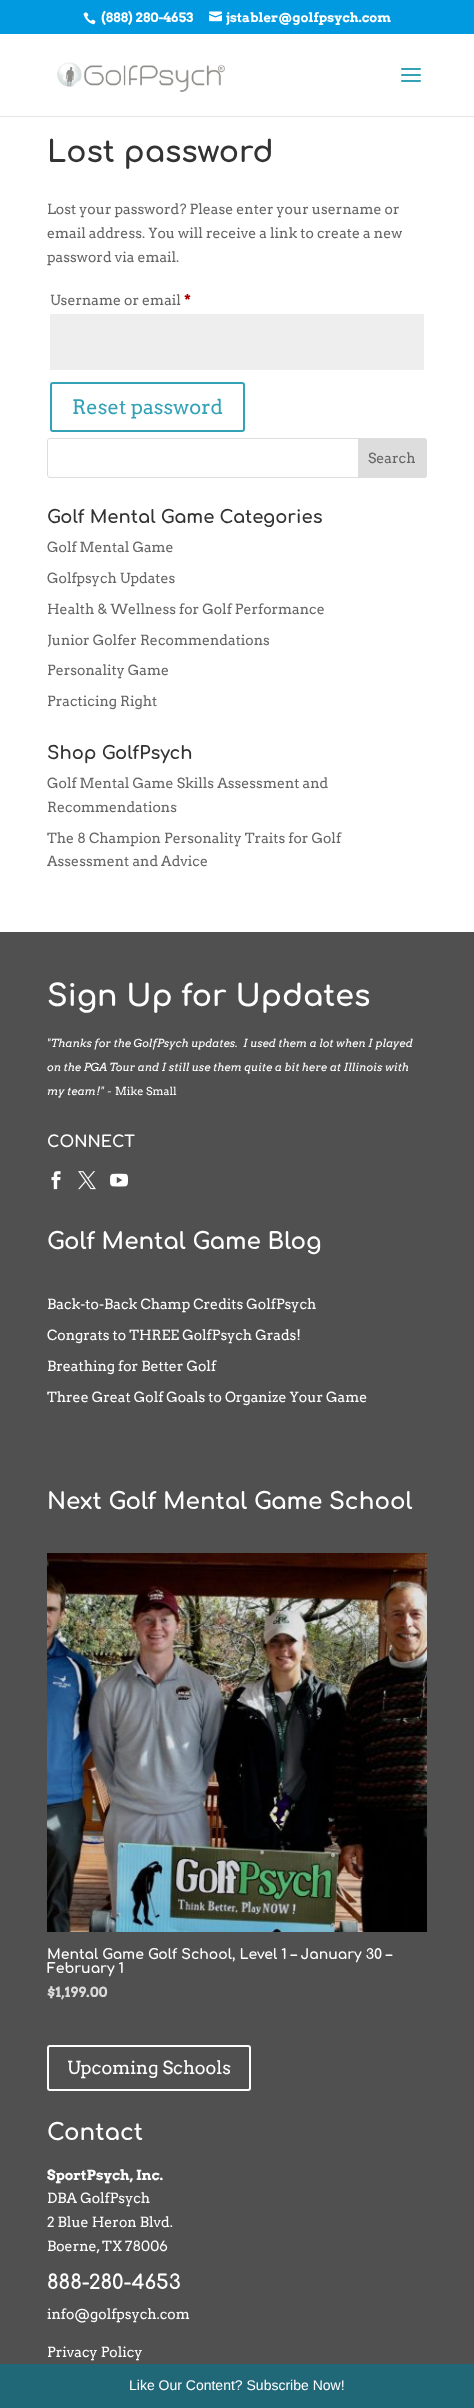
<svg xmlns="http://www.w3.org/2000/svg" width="474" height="2408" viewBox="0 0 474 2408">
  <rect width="100%" height="100%" fill="rgb(255,255,255)"/>
  <rect x="0" y="0" width="474" height="34" fill="rgb(1,154,224)"/>
  <image x="83" y="12" width="13" height="13" href="pic1.png"/>
  <text x="101" y="22" font-family="Arvo" font-size="13" font-weight="bold" fill="rgb(255,255,255)">(888) 280-4653</text>
  <image x="209" y="11" width="13" height="11" href="pic2.png"/>
  <text x="226" y="22" font-family="Arvo" font-size="13" font-weight="bold" fill="rgb(255,255,255)">jstabler@golfpsych.com</text>
  <rect x="0" y="116" width="474" height="1" fill="rgb(230,230,230)"/>
  <image x="57" y="62" width="168" height="30" href="pic3.png"/>
  <image x="401" y="68" width="20" height="14" href="pic4.png"/>
  <text x="47" y="162" font-family="Comfortaa" font-size="30" font-weight="bold" fill="rgb(51,51,51)">Lost password</text>
  <g font-family="Arvo" font-size="14" fill="rgb(102,102,102)">
    <text>
      <tspan x="47" y="214">Lost your password? Please enter your username or</tspan>
      <tspan x="47" y="238">email address. You will receive a link to create a new</tspan>
      <tspan x="47" y="262">password via email.</tspan>
    </text>
    <text x="50" y="305">Username or email</text>
  </g>
  <text x="184" y="305" font-family="Arvo" font-size="14" font-weight="bold" fill="rgb(170,0,0)">*</text>
  <rect x="50" y="314" width="374" height="56" fill="rgb(238,238,238)"/>
  <rect x="51" y="383" width="193" height="48" rx="2" fill="none" stroke="rgb(52,162,182)" stroke-width="2"/>
  <text x="72" y="414" font-family="Arvo" font-size="20" fill="rgb(52,162,182)">Reset password</text>
  <rect x="47.5" y="438.5" width="379" height="39" rx="2.5" fill="none" stroke="rgb(221,221,221)"/>
  <path d="M358.5 438.5H424C425.5 438.5 426.5 439.5 426.5 441V475C426.5 476.5 425.5 477.5 424 477.5H358.5Z" fill="rgb(221,221,221)" stroke="rgb(221,221,221)"/>
  <text x="368" y="463" font-family="Arvo" font-size="14" fill="rgb(102,102,102)">Search</text>
  <text x="47" y="523" font-family="Comfortaa" font-size="18" font-weight="bold" fill="rgb(51,51,51)">Golf Mental Game Categories</text>
  <g font-family="Arvo" font-size="14" fill="rgb(102,102,102)">
    <text x="47" y="552">Golf Mental Game</text>
    <text x="47" y="583">Golfpsych Updates</text>
    <text x="47" y="614">Health &amp; Wellness for Golf Performance</text>
    <text x="47" y="645">Junior Golfer Recommendations</text>
    <text x="47" y="675">Personality Game</text>
    <text x="47" y="706">Practicing Right</text>
  </g>
  <text x="47" y="759" font-family="Comfortaa" font-size="18" font-weight="bold" fill="rgb(51,51,51)">Shop GolfPsych</text>
  <g font-family="Arvo" font-size="14" fill="rgb(102,102,102)">
    <text>
      <tspan x="47" y="788">Golf Mental Game Skills Assessment and</tspan>
      <tspan x="47" y="812">Recommendations</tspan>
    </text>
    <text>
      <tspan x="47" y="843">The 8 Champion Personality Traits for Golf</tspan>
      <tspan x="47" y="866">Assessment and Advice</tspan>
    </text>
  </g>
  <rect x="0" y="932" width="474" height="1432" fill="rgb(80,80,80)"/>
  <text x="47" y="1006" font-family="Comfortaa" font-size="30" font-weight="bold" fill="rgb(255,255,255)">Sign Up for Updates</text>
  <g font-family="Arvo" font-size="11" font-style="italic" fill="rgb(255,255,255)">
    <text x="47" y="1047" xml:space="preserve">"Thanks for the GolfPsych updates.  I used them a lot when I played</text>
    <text x="47" y="1071">on the PGA Tour and I still use them quite a bit here at Illinois with</text>
    <text x="47" y="1095">my team!" -</text>
  </g>
  <text x="115" y="1095" font-family="Arvo" font-size="11" fill="rgb(255,255,255)">Mike Small</text>
  <text x="47" y="1147" font-family="Comfortaa" font-size="16" font-weight="bold" fill="rgb(255,255,255)">CONNECT</text>
  <image x="51" y="1171" width="10" height="19" href="pic5.png"/>
  <image x="78" y="1171" width="18" height="19" href="pic6.png"/>
  <image x="110" y="1173" width="18" height="14" href="pic7.png"/>
  <text x="47" y="1249" font-family="Comfortaa" font-size="23" font-weight="bold" fill="rgb(255,255,255)">Golf Mental Game Blog</text>
  <g font-family="Arvo" font-size="14" fill="rgb(255,255,255)">
    <text x="47" y="1309">Back-to-Back Champ Credits GolfPsych</text>
    <text x="47" y="1340">Congrats to THREE GolfPsych Grads!</text>
    <text x="47" y="1371">Breathing for Better Golf</text>
    <text x="47" y="1402">Three Great Golf Goals to Organize Your Game</text>
  </g>
  <text x="47" y="1509" font-family="Comfortaa" font-size="23" font-weight="bold" fill="rgb(255,255,255)">Next Golf Mental Game School</text>
  <image x="47" y="1553" width="380" height="379" href="pic8.png"/>
  <g font-family="Comfortaa" font-size="14" font-weight="bold" fill="rgb(255,255,255)">
    <text>
      <tspan x="47" y="1959">Mental Game Golf School, Level 1 – January 30 –</tspan>
      <tspan x="47" y="1973">February 1</tspan>
    </text>
  </g>
  <text x="47" y="1997" font-family="Arvo" font-size="14" font-weight="bold" fill="rgb(219,219,219)">$1,199.00</text>
  <rect x="48" y="2046" width="202" height="44" rx="2" fill="none" stroke="rgb(255,255,255)" stroke-width="2"/>
  <text x="67" y="2074" font-family="Arvo" font-size="18" fill="rgb(255,255,255)">Upcoming Schools</text>
  <text x="47" y="2140" font-family="Comfortaa" font-size="23" font-weight="bold" fill="rgb(255,255,255)">Contact</text>
  <text x="47" y="2180" font-family="Arvo" font-size="14" font-weight="bold" fill="rgb(255,255,255)">SportPsych, Inc.</text>
  <g font-family="Arvo" font-size="14" fill="rgb(255,255,255)">
    <text>
      <tspan x="47" y="2203">DBA GolfPsych</tspan>
      <tspan x="47" y="2227">2 Blue Heron Blvd.</tspan>
      <tspan x="47" y="2251">Boerne, TX 78006</tspan>
    </text>
  </g>
  <text x="47" y="2289" font-family="Comfortaa" font-size="20" font-weight="bold" fill="rgb(255,255,255)">888-280-4653</text>
  <g font-family="Arvo" font-size="14" fill="rgb(255,255,255)">
    <text x="47" y="2319">info@golfpsych.com</text>
    <text x="47" y="2357">Privacy Policy</text>
  </g>
  <rect x="0" y="2364" width="474" height="44" fill="rgb(32,103,120)"/>
  <text x="129" y="2390" font-family="Liberation Sans" font-size="14" fill="rgb(255,255,255)">Like Our Content? Subscribe Now!</text>
</svg>
